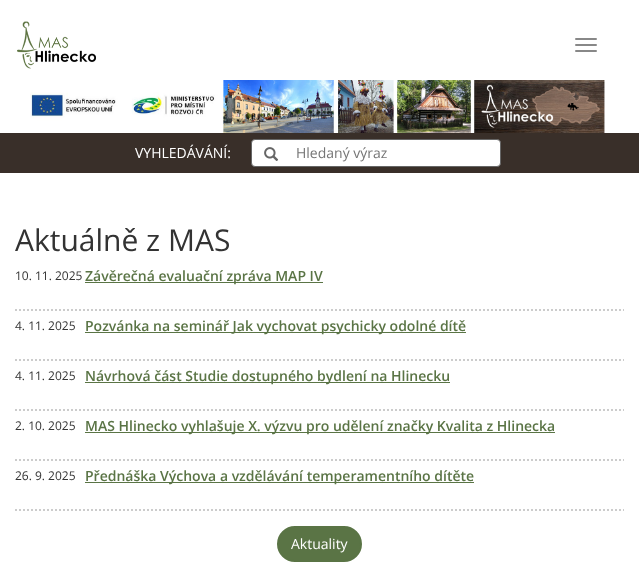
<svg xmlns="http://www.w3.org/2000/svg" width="639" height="581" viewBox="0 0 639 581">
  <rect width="100%" height="100%" fill="rgb(255,255,255)"/>
  <image x="17" y="21" width="79" height="48" href="pic1.png"/>
  <rect x="575" y="38" width="22" height="2" rx="1" fill="rgb(136,136,136)"/>
  <rect x="575" y="44" width="22" height="2" rx="1" fill="rgb(136,136,136)"/>
  <rect x="575" y="50" width="22" height="2" rx="1" fill="rgb(136,136,136)"/>
  <image x="30" y="80" width="575" height="53" href="pic2.png"/>
  <rect x="0" y="133" width="639" height="40" fill="rgb(57,47,41)"/>
  <text x="135" y="158" font-family="Open Sans" font-size="14" fill="rgb(255,255,255)">VYHLEDÁVÁNÍ:</text>
  <rect x="251.5" y="139.5" width="249" height="27" rx="3.5" fill="rgb(255,255,255)" stroke="rgb(102,102,102)"/>
  <image x="264" y="147" width="15" height="14" href="pic3.png"/>
  <text x="296" y="158" font-family="Open Sans" font-size="14" fill="rgb(117,117,117)">Hledaný výraz</text>
  <text x="15" y="251" font-family="Open Sans" font-size="30" fill="rgb(51,51,51)">Aktuálně z MAS</text>
  <path d="M15 310H624" fill="none" stroke="rgb(204,204,204)" stroke-width="2" stroke-dasharray="2 2"/>
  <text x="15" y="280" font-family="Open Sans" font-size="12" fill="rgb(51,51,51)">10. 11. 2025</text>
  <rect x="85" y="282" width="238" height="1" fill="rgb(90,116,69)"/>
  <text x="85" y="281" font-family="Open Sans" font-size="14" font-weight="600" fill="rgb(90,116,69)">Závěrečná evaluační zpráva MAP IV</text>
  <path d="M15 360H624" fill="none" stroke="rgb(204,204,204)" stroke-width="2" stroke-dasharray="2 2"/>
  <text x="15" y="330" font-family="Open Sans" font-size="12" fill="rgb(51,51,51)">4. 11. 2025</text>
  <rect x="85" y="332" width="381" height="1" fill="rgb(90,116,69)"/>
  <text x="85" y="331" font-family="Open Sans" font-size="14" font-weight="600" fill="rgb(90,116,69)">Pozvánka na seminář Jak vychovat psychicky odolné dítě</text>
  <path d="M15 410H624" fill="none" stroke="rgb(204,204,204)" stroke-width="2" stroke-dasharray="2 2"/>
  <text x="15" y="380" font-family="Open Sans" font-size="12" fill="rgb(51,51,51)">4. 11. 2025</text>
  <rect x="85" y="382" width="365" height="1" fill="rgb(90,116,69)"/>
  <text x="85" y="381" font-family="Open Sans" font-size="14" font-weight="600" fill="rgb(90,116,69)">Návrhová část Studie dostupného bydlení na Hlinecku</text>
  <path d="M15 460H624" fill="none" stroke="rgb(204,204,204)" stroke-width="2" stroke-dasharray="2 2"/>
  <text x="15" y="430" font-family="Open Sans" font-size="12" fill="rgb(51,51,51)">2. 10. 2025</text>
  <rect x="85" y="432" width="470" height="1" fill="rgb(90,116,69)"/>
  <text x="85" y="431" font-family="Open Sans" font-size="14" font-weight="600" fill="rgb(90,116,69)">MAS Hlinecko vyhlašuje X. výzvu pro udělení značky Kvalita z Hlinecka</text>
  <path d="M15 510H624" fill="none" stroke="rgb(204,204,204)" stroke-width="2" stroke-dasharray="2 2"/>
  <text x="15" y="480" font-family="Open Sans" font-size="12" fill="rgb(51,51,51)">26. 9. 2025</text>
  <rect x="85" y="482" width="389" height="1" fill="rgb(90,116,69)"/>
  <text x="85" y="481" font-family="Open Sans" font-size="14" font-weight="600" fill="rgb(90,116,69)">Přednáška Výchova a vzdělávání temperamentního dítěte</text>
  <rect x="278" y="527" width="83" height="34" rx="17" fill="rgb(90,116,69)" stroke="rgb(90,116,69)" stroke-width="2"/>
  <text x="291" y="549" font-family="Open Sans" font-size="14" fill="rgb(255,255,255)">Aktuality</text>
</svg>
